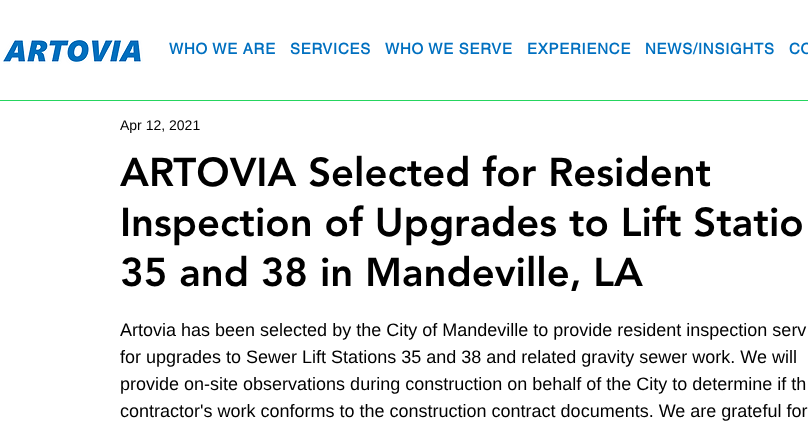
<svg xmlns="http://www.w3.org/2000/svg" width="808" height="435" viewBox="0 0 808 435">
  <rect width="100%" height="100%" fill="rgb(255,255,255)"/>
  <image x="3" y="40" width="140" height="24" href="pic1.png"/>
  <g font-family="helvetica" font-size="15" font-weight="bold" letter-spacing="0.75" fill="rgb(0,112,192)">
    <text x="169" y="54">WHO WE ARE</text>
    <text x="290" y="54">SERVICES</text>
    <text x="385" y="54">WHO WE SERVE</text>
    <text x="527" y="54">EXPERIENCE</text>
    <text x="645" y="54">NEWS/INSIGHTS</text>
    <text x="789" y="54">CO</text>
  </g>
  <rect x="0" y="100" width="808" height="1" fill="rgb(37,213,95)"/>
  <text x="120" y="130" font-family="Liberation Sans" font-size="14" fill="rgb(0,0,0)">Apr 12, 2021</text>
  <g font-family="'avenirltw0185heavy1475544'" font-size="40" font-weight="900" fill="rgb(0,0,0)">
    <text>
      <tspan x="120" y="186">ARTOVIA Selected for Resident</tspan>
      <tspan x="120" y="236">Inspection of Upgrades to Lift Statio</tspan>
      <tspan x="120" y="286">35 and 38 in Mandeville, LA</tspan>
    </text>
  </g>
  <g font-family="Liberation Sans" font-size="18" fill="rgb(0,0,0)">
    <text>
      <tspan x="120" y="336">Artovia has been selected by the City of Mandeville to provide resident inspection serv</tspan>
      <tspan x="120" y="363">for upgrades to Sewer Lift Stations 35 and 38 and related gravity sewer work. We will</tspan>
      <tspan x="120" y="390">provide on-site observations during construction on behalf of the City to determine if th</tspan>
      <tspan x="120" y="417">contractor's work conforms to the construction contract documents. We are grateful for</tspan>
    </text>
  </g>
</svg>
